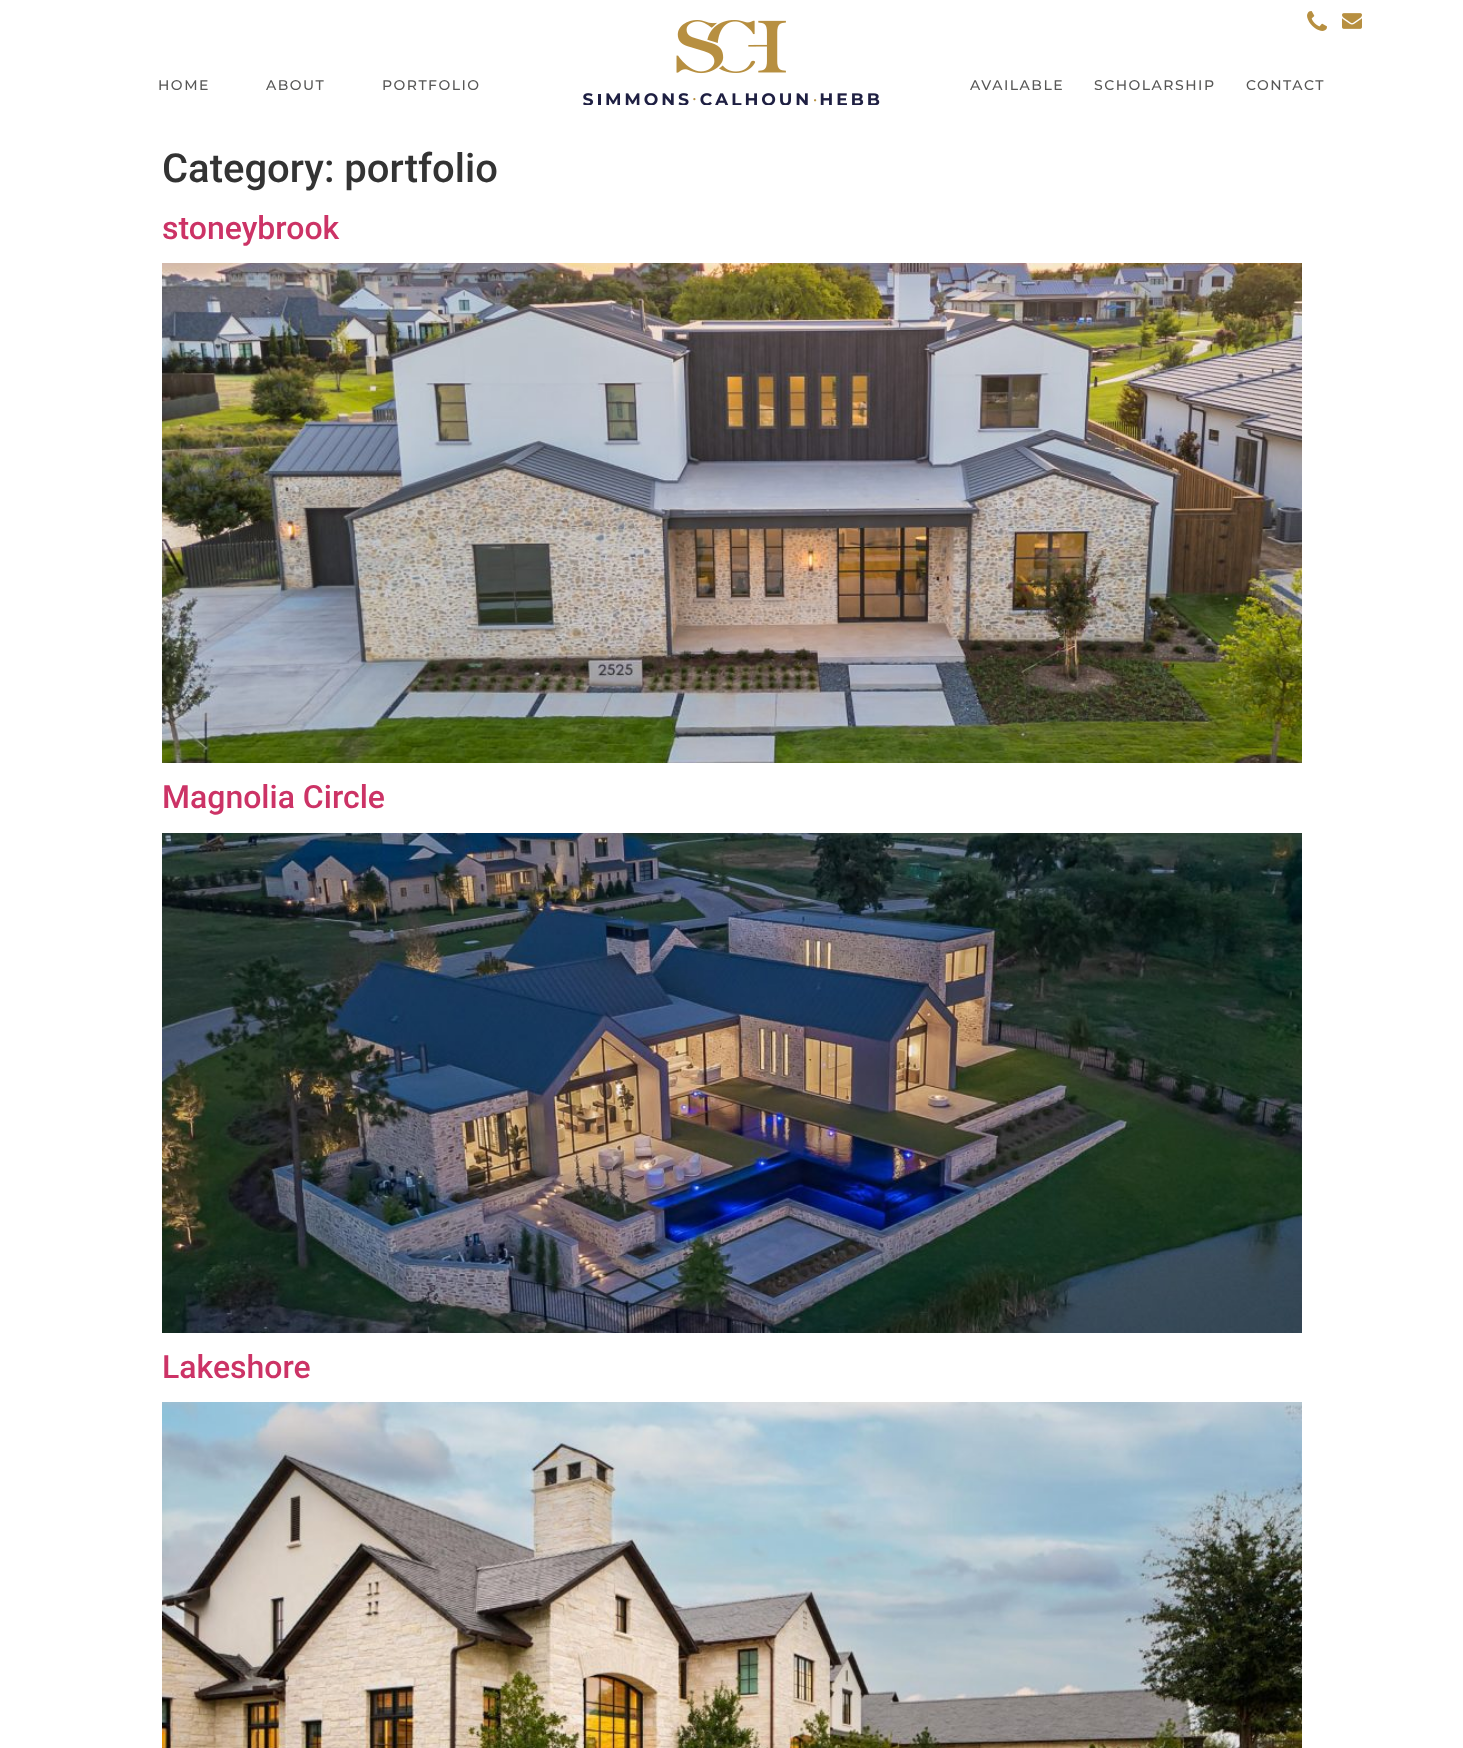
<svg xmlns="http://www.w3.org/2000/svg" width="1463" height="1748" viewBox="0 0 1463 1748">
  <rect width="100%" height="100%" fill="rgb(255,255,255)"/>
  <image x="1307" y="11" width="20" height="20" href="pic1.png"/>
  <image x="1342" y="13" width="20" height="16" href="pic2.png"/>
  <g font-family="Montserrat" font-size="14" font-weight="500" letter-spacing="1.5" fill="rgb(87,87,86)">
    <text x="158" y="90">HOME</text>
    <text x="266" y="90">ABOUT</text>
    <text x="382" y="90">PORTFOLIO</text>
  </g>
  <image x="583" y="20" width="297" height="85" href="pic3.png"/>
  <g font-family="Montserrat" font-size="14" font-weight="500" letter-spacing="1.5" fill="rgb(87,87,86)">
    <text x="970" y="90">AVAILABLE</text>
    <text x="1094" y="90">SCHOLARSHIP</text>
    <text x="1246" y="90">CONTACT</text>
  </g>
  <text x="162" y="182" font-family="Roboto" font-size="40" font-weight="500" fill="rgb(51,51,51)">Category: portfolio</text>
  <text x="162" y="239" font-family="Roboto" font-size="32" font-weight="500" fill="rgb(204,51,102)">stoneybrook</text>
  <image x="162" y="263" width="1140" height="500" href="pic4.png"/>
  <text x="162" y="808" font-family="Roboto" font-size="32" font-weight="500" fill="rgb(204,51,102)">Magnolia Circle</text>
  <image x="162" y="833" width="1140" height="500" href="pic5.png"/>
  <text x="162" y="1378" font-family="Roboto" font-size="32" font-weight="500" fill="rgb(204,51,102)">Lakeshore</text>
  <image x="162" y="1402" width="1140" height="346" href="pic6.png"/>
</svg>
